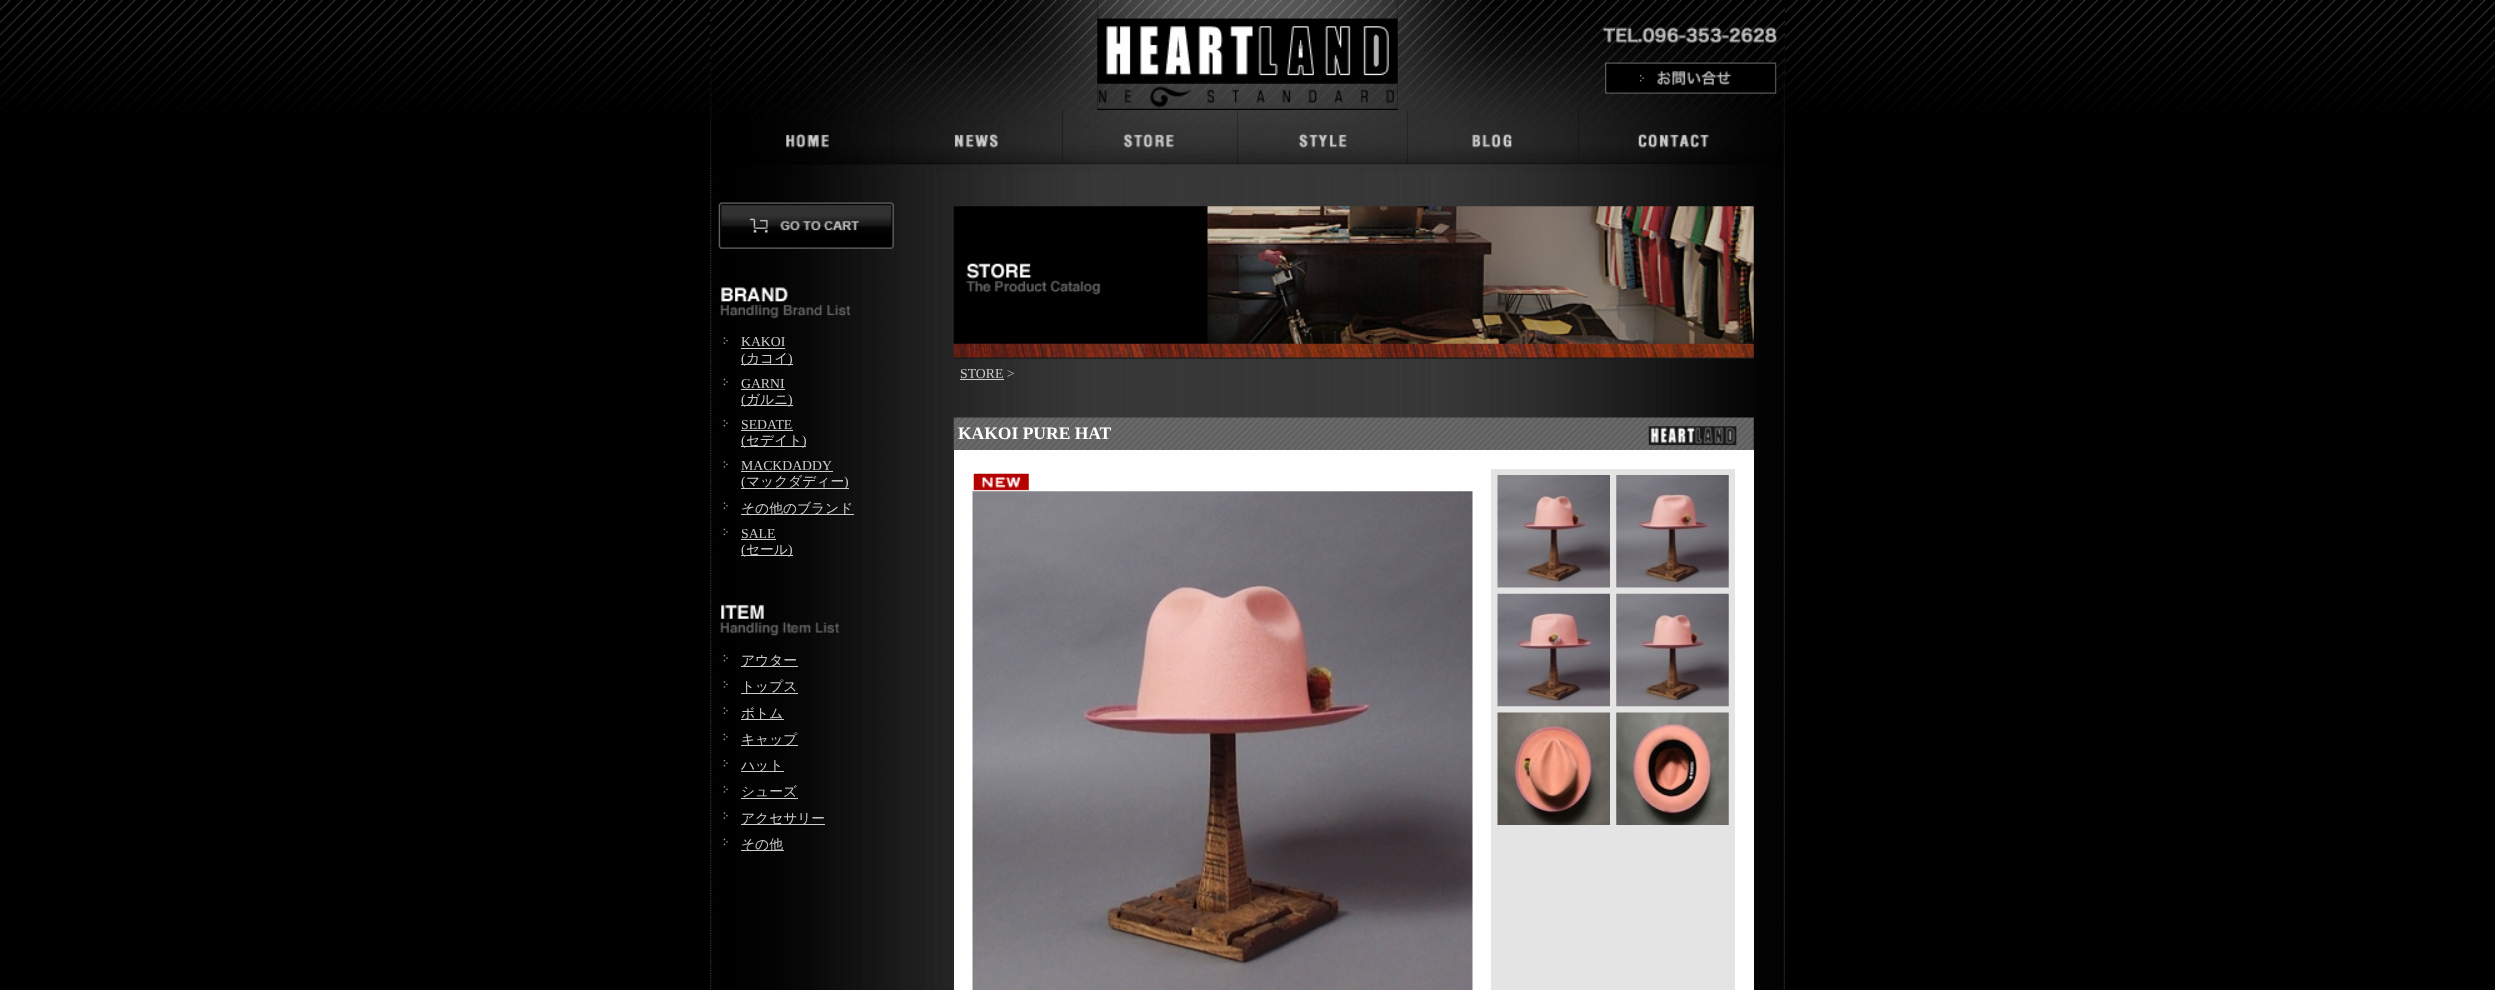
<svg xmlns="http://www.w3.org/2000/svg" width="2495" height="990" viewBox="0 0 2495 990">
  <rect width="100%" height="100%" fill="rgb(0,0,0)"/>
  <image x="0" y="0" width="2495" height="111" href="pic1.png"/>
  <image x="710" y="0" width="388" height="110" href="pic2.png"/>
  <image x="1397" y="0" width="388" height="110" href="pic5.png"/>
  <image x="1097" y="0" width="301" height="19" href="pic3.png"/>
  <image x="1097" y="18" width="301" height="92" href="pic4.png"/>
  <image x="1602" y="27" width="175" height="16" href="pic6.png"/>
  <image x="1605" y="62" width="172" height="32" href="pic7.png"/>
  <image x="710" y="163" width="1075" height="12" href="pic16.png"/>
  <image x="710" y="110" width="15" height="54" href="pic8.png"/>
  <image x="749" y="110" width="144" height="54" href="pic9.png"/>
  <image x="892" y="110" width="171" height="54" href="pic10.png"/>
  <image x="1062" y="110" width="176" height="54" href="pic11.png"/>
  <image x="1237" y="110" width="171" height="54" href="pic12.png"/>
  <image x="1407" y="110" width="172" height="54" href="pic13.png"/>
  <image x="1579" y="110" width="182" height="54" href="pic14.png"/>
  <image x="1762" y="110" width="23" height="54" href="pic15.png"/>
  <image x="710" y="175" width="1075" height="815" href="pic17.png"/>
  <image x="718" y="202" width="176" height="47" href="pic18.png"/>
  <image x="720" y="287" width="131" height="32" href="pic19.png"/>
  <image x="723" y="337" width="5" height="7" href="pic20.png"/>
  <text x="741" y="346" font-family="Liberation Serif" font-size="13.75" fill="rgb(204,204,204)">KAKOI</text>
  <rect x="741" y="348" width="44" height="1" fill="rgb(204,204,204)"/>
  <rect x="741" y="364" width="52" height="1" fill="rgb(204,204,204)"/>
  <text x="741" y="363" font-family="Liberation Serif" font-size="13.75" fill="rgb(204,204,204)">(</text>
  <text x="746" y="363" font-family="WenQuanYi Zen Hei" font-size="13.75" font-weight="500" fill="rgb(204,204,204)">カコイ</text>
  <text x="788" y="363" font-family="Liberation Serif" font-size="13.75" fill="rgb(204,204,204)">)</text>
  <image x="723" y="378" width="5" height="8" href="pic21.png"/>
  <text x="741" y="388" font-family="Liberation Serif" font-size="13.75" fill="rgb(204,204,204)">GARNI</text>
  <rect x="741" y="389" width="44" height="1" fill="rgb(204,204,204)"/>
  <rect x="741" y="405" width="52" height="1" fill="rgb(204,204,204)"/>
  <text x="741" y="404" font-family="Liberation Serif" font-size="13.75" fill="rgb(204,204,204)">(</text>
  <text x="746" y="404" font-family="WenQuanYi Zen Hei" font-size="13.75" font-weight="500" fill="rgb(204,204,204)">ガルニ</text>
  <text x="788" y="404" font-family="Liberation Serif" font-size="13.75" fill="rgb(204,204,204)">)</text>
  <image x="723" y="419" width="5" height="8" href="pic22.png"/>
  <text x="741" y="429" font-family="Liberation Serif" font-size="13.75" fill="rgb(204,204,204)">SEDATE</text>
  <rect x="741" y="430" width="52" height="1" fill="rgb(204,204,204)"/>
  <rect x="741" y="446" width="65" height="1" fill="rgb(204,204,204)"/>
  <text x="741" y="445" font-family="Liberation Serif" font-size="13.75" fill="rgb(204,204,204)">(</text>
  <text x="746" y="445" font-family="WenQuanYi Zen Hei" font-size="13.75" font-weight="500" fill="rgb(204,204,204)">セデイト</text>
  <text x="802" y="445" font-family="Liberation Serif" font-size="13.75" fill="rgb(204,204,204)">)</text>
  <image x="723" y="461" width="5" height="7" href="pic23.png"/>
  <text x="741" y="470" font-family="Liberation Serif" font-size="13.75" fill="rgb(204,204,204)">MACKDADDY</text>
  <rect x="741" y="471" width="92" height="1" fill="rgb(204,204,204)"/>
  <rect x="741" y="488" width="108" height="1" fill="rgb(204,204,204)"/>
  <text x="741" y="486" font-family="Liberation Serif" font-size="13.75" fill="rgb(204,204,204)">(</text>
  <text x="746" y="486" font-family="WenQuanYi Zen Hei" font-size="13.75" font-weight="500" fill="rgb(204,204,204)">マックダディー</text>
  <text x="844" y="486" font-family="Liberation Serif" font-size="13.75" fill="rgb(204,204,204)">)</text>
  <image x="723" y="502" width="5" height="7" href="pic20.png"/>
  <rect x="741" y="514" width="113" height="1" fill="rgb(204,204,204)"/>
  <text x="741" y="513" font-family="WenQuanYi Zen Hei" font-size="13.75" font-weight="500" fill="rgb(204,204,204)">その他のブランド</text>
  <image x="723" y="528" width="5" height="8" href="pic21.png"/>
  <text x="741" y="538" font-family="Liberation Serif" font-size="13.75" fill="rgb(204,204,204)">SALE</text>
  <rect x="741" y="539" width="35" height="1" fill="rgb(204,204,204)"/>
  <rect x="741" y="555" width="52" height="1" fill="rgb(204,204,204)"/>
  <text x="741" y="554" font-family="Liberation Serif" font-size="13.75" fill="rgb(204,204,204)">(</text>
  <text x="746" y="554" font-family="WenQuanYi Zen Hei" font-size="13.75" font-weight="500" fill="rgb(204,204,204)">セール</text>
  <text x="788" y="554" font-family="Liberation Serif" font-size="13.75" fill="rgb(204,204,204)">)</text>
  <image x="720" y="604" width="120" height="33" href="pic24.png"/>
  <image x="723" y="654" width="5" height="8" href="pic22.png"/>
  <rect x="741" y="666" width="57" height="1" fill="rgb(204,204,204)"/>
  <text x="741" y="665" font-family="WenQuanYi Zen Hei" font-size="13.75" font-weight="500" fill="rgb(204,204,204)">アウター</text>
  <image x="723" y="681" width="5" height="7" href="pic23.png"/>
  <text x="741" y="691" font-family="WenQuanYi Zen Hei" font-size="13.75" font-weight="500" fill="rgb(204,204,204)">トップス</text>
  <rect x="741" y="693" width="57" height="1" fill="rgb(204,204,204)"/>
  <image x="723" y="707" width="5" height="7" href="pic20.png"/>
  <rect x="741" y="719" width="43" height="1" fill="rgb(204,204,204)"/>
  <text x="741" y="718" font-family="WenQuanYi Zen Hei" font-size="13.75" font-weight="500" fill="rgb(204,204,204)">ボトム</text>
  <image x="723" y="733" width="5" height="8" href="pic21.png"/>
  <rect x="741" y="745" width="57" height="1" fill="rgb(204,204,204)"/>
  <text x="741" y="744" font-family="WenQuanYi Zen Hei" font-size="13.75" font-weight="500" fill="rgb(204,204,204)">キャップ</text>
  <image x="723" y="759" width="5" height="8" href="pic22.png"/>
  <rect x="741" y="771" width="43" height="1" fill="rgb(204,204,204)"/>
  <text x="741" y="770" font-family="WenQuanYi Zen Hei" font-size="13.75" font-weight="500" fill="rgb(204,204,204)">ハット</text>
  <image x="723" y="786" width="5" height="7" href="pic23.png"/>
  <text x="741" y="796" font-family="WenQuanYi Zen Hei" font-size="13.75" font-weight="500" fill="rgb(204,204,204)">シューズ</text>
  <rect x="741" y="798" width="57" height="1" fill="rgb(204,204,204)"/>
  <image x="723" y="812" width="5" height="7" href="pic20.png"/>
  <rect x="741" y="824" width="84" height="1" fill="rgb(204,204,204)"/>
  <text x="741" y="823" font-family="WenQuanYi Zen Hei" font-size="13.75" font-weight="500" fill="rgb(204,204,204)">アクセサリー</text>
  <image x="723" y="838" width="5" height="8" href="pic21.png"/>
  <rect x="741" y="850" width="43" height="1" fill="rgb(204,204,204)"/>
  <text x="741" y="849" font-family="WenQuanYi Zen Hei" font-size="13.75" font-weight="500" fill="rgb(204,204,204)">その他</text>
  <image x="953" y="206" width="801" height="153" href="pic25.png"/>
  <text x="960" y="378" font-family="Liberation Serif" font-size="13.75" fill="rgb(204,204,204)">STORE &gt;</text>
  <rect x="960" y="379" width="44" height="1" fill="rgb(204,204,204)"/>
  <image x="953" y="417" width="801" height="33" href="pic26.png"/>
  <text x="958" y="439" font-family="Liberation Serif" font-size="17.5" font-weight="bold" fill="rgb(255,255,255)">KAKOI PURE HAT</text>
  <rect x="954" y="450" width="800" height="540" fill="rgb(255,255,255)"/>
  <image x="973" y="473" width="56" height="18" href="pic27.png"/>
  <image x="972" y="491" width="501" height="499" href="pic28.png"/>
  <rect x="1491" y="469" width="244" height="521" fill="rgb(228,228,228)"/>
  <image x="1497" y="475" width="113" height="113" href="pic29.png"/>
  <image x="1616" y="475" width="113" height="113" href="pic30.png"/>
  <image x="1497" y="593" width="113" height="114" href="pic31.png"/>
  <image x="1616" y="593" width="113" height="114" href="pic32.png"/>
  <image x="1497" y="712" width="113" height="113" href="pic33.png"/>
  <image x="1616" y="712" width="113" height="113" href="pic34.png"/>
</svg>
